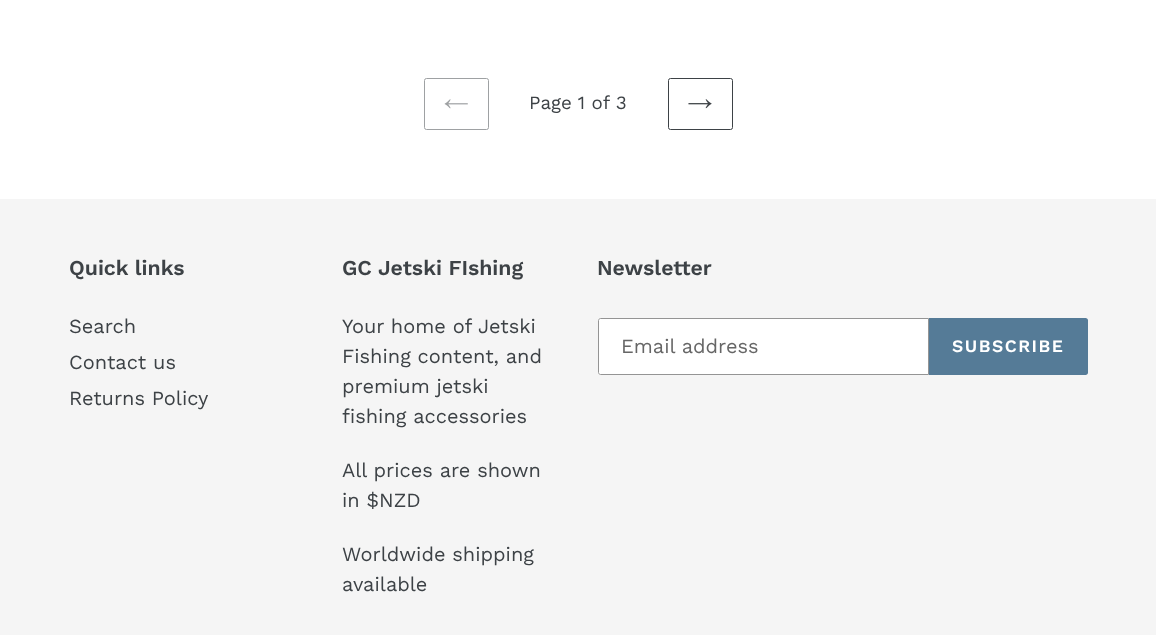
<svg xmlns="http://www.w3.org/2000/svg" width="1156" height="635" viewBox="0 0 1156 635">
  <rect width="100%" height="100%" fill="rgb(255,255,255)"/>
  <rect x="424.5" y="78.5" width="64" height="51" rx="2" fill="none" stroke="rgb(158,161,163)"/>
  <image x="444" y="99" width="24" height="10" href="pic1.png"/>
  <text x="529" y="109" font-family="Work Sans" font-size="18.75" fill="rgb(61,66,70)">Page 1 of 3</text>
  <rect x="668.5" y="78.5" width="64" height="51" rx="2" fill="none" stroke="rgb(61,66,70)"/>
  <image x="688" y="99" width="24" height="10" href="pic2.png"/>
  <rect x="0" y="199" width="1156" height="436" fill="rgb(245,245,245)"/>
  <text x="69" y="275" font-family="Work Sans" font-size="21.25" font-weight="600" fill="rgb(61,66,70)">Quick links</text>
  <g font-family="Work Sans" font-size="20" fill="rgb(61,66,70)">
    <text>
      <tspan x="69" y="333">Search</tspan>
      <tspan x="69" y="369">Contact us</tspan>
      <tspan x="69" y="405">Returns Policy</tspan>
    </text>
  </g>
  <text x="342" y="275" font-family="Work Sans" font-size="21.25" font-weight="600" fill="rgb(61,66,70)">GC Jetski FIshing</text>
  <g font-family="Work Sans" font-size="20" fill="rgb(61,66,70)">
    <text>
      <tspan x="342" y="333">Your home of Jetski</tspan>
      <tspan x="342" y="363">Fishing content, and</tspan>
      <tspan x="342" y="393">premium jetski</tspan>
      <tspan x="342" y="423">fishing accessories</tspan>
    </text>
    <text>
      <tspan x="342" y="477">All prices are shown</tspan>
      <tspan x="342" y="507">in $NZD</tspan>
    </text>
    <text>
      <tspan x="342" y="561">Worldwide shipping</tspan>
      <tspan x="342" y="591">available</tspan>
    </text>
  </g>
  <text x="597" y="275" font-family="Work Sans" font-size="21.25" font-weight="600" fill="rgb(61,66,70)">Newsletter</text>
  <path d="M600.5 318.5H928.5V374.5H600.5C599.5 374.5 598.5 373.5 598.5 372.5V320.5C598.5 319.5 599.5 318.5 600.5 318.5Z" fill="rgb(255,255,255)" stroke="rgb(148,148,148)"/>
  <text x="621" y="353" font-family="Work Sans" font-size="20" fill="rgb(102,102,102)">Email address</text>
  <path d="M929 318H1085.5C1087 318 1088 319 1088 320.5V372.5C1088 374 1087 375 1085.5 375H929Z" fill="rgb(85,123,151)"/>
  <text x="952" y="352" font-family="Work Sans" font-size="17.5" font-weight="600" letter-spacing="1.5" fill="rgb(255,255,255)">SUBSCRIBE</text>
</svg>
